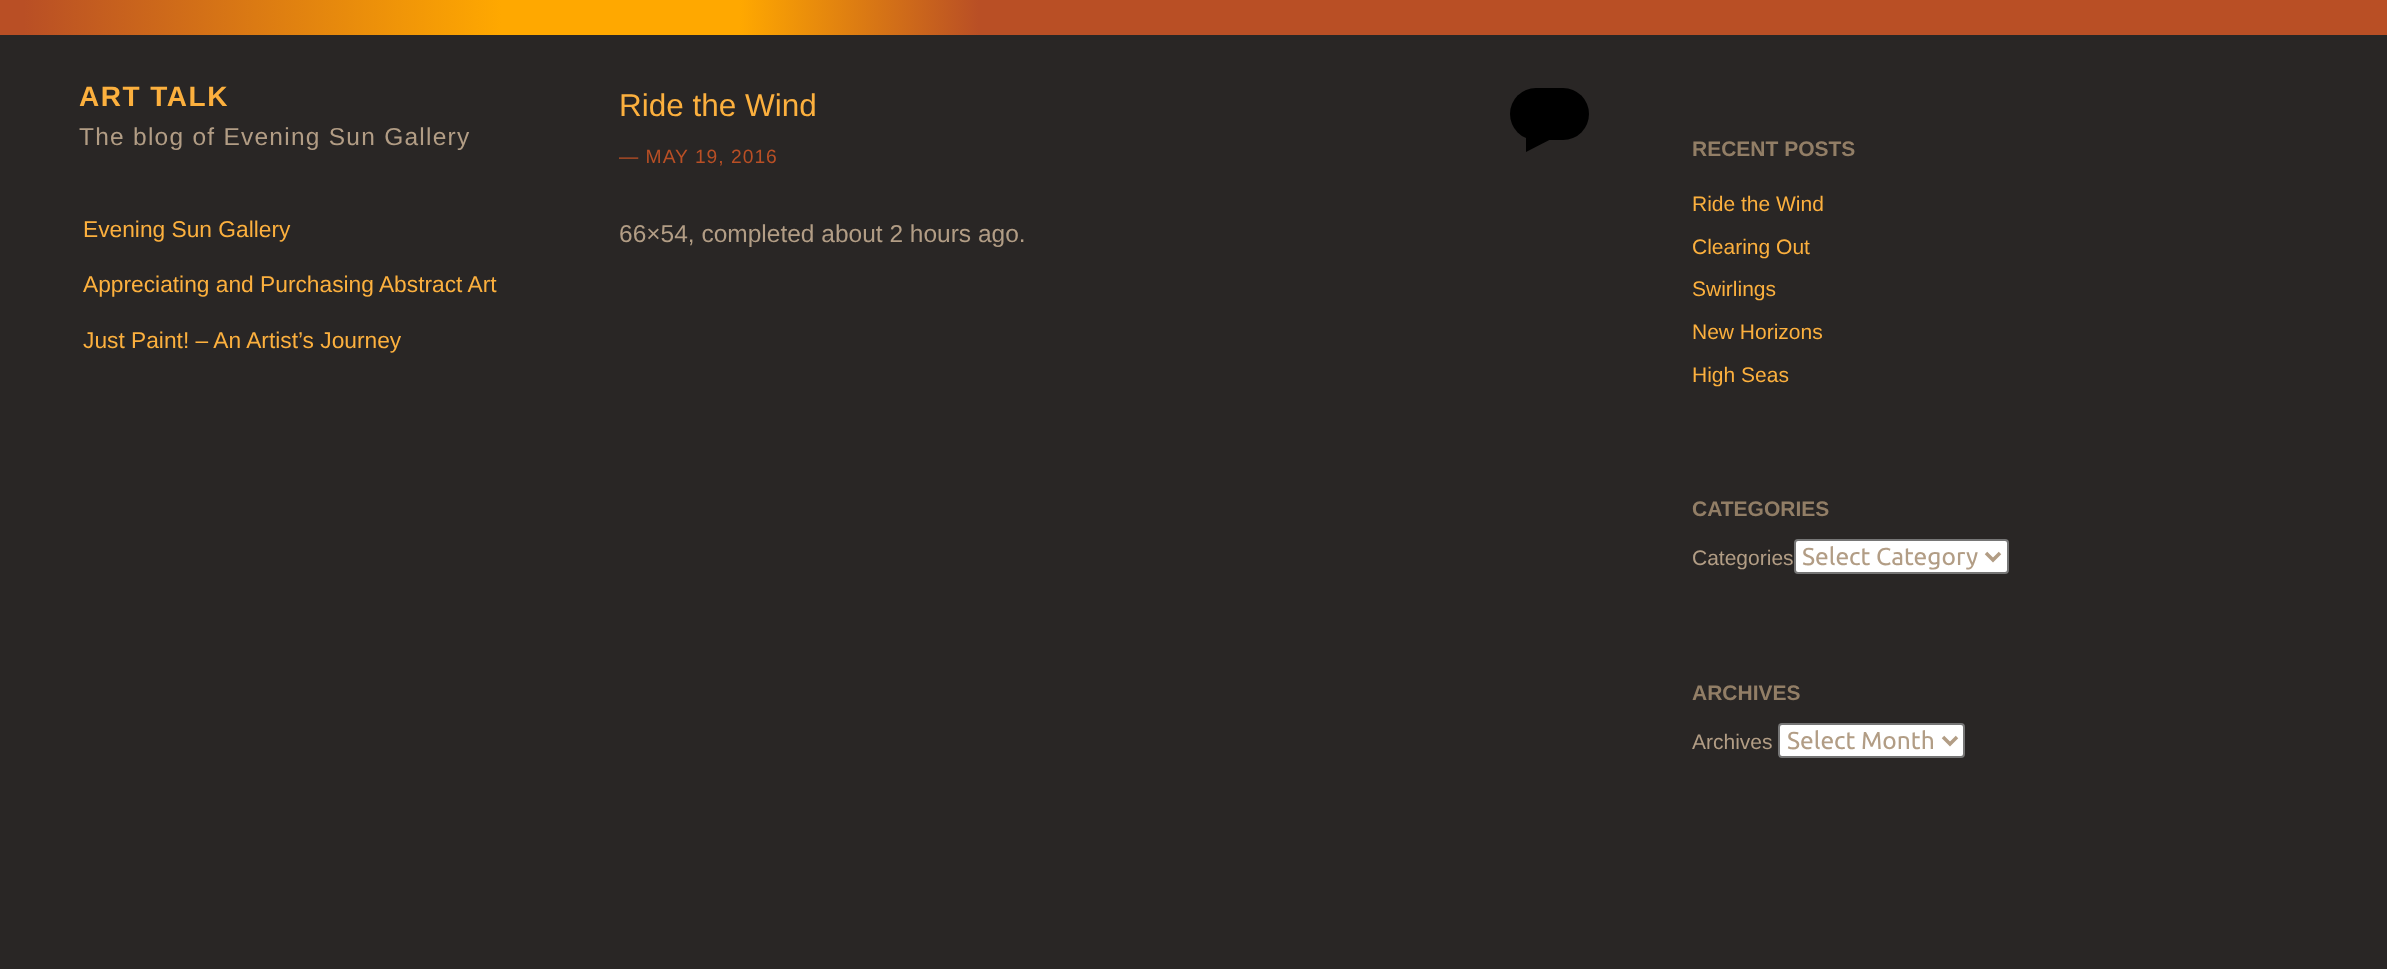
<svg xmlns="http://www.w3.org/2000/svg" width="2387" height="969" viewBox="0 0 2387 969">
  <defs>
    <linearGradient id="g1" gradientUnits="userSpaceOnUse" x1="0" y1="18" x2="2387" y2="17"><stop offset="0.01" stop-color="rgb(185,79,37)"/><stop offset="0.21" stop-color="rgb(255,168,0)"/><stop offset="0.31" stop-color="rgb(255,168,0)"/><stop offset="0.41" stop-color="rgb(185,79,37)"/></linearGradient>
  </defs>
  <rect width="100%" height="100%" fill="rgb(41,38,37)"/>
  <rect x="0" y="0" width="2387" height="35" fill="url(#g1)"/>
  <text x="79" y="106" font-family="Liberation Sans" font-size="28" font-weight="bold" letter-spacing="1.5" fill="rgb(252,176,62)">ART TALK</text>
  <text x="79" y="145" font-family="Liberation Sans" font-size="24.5" letter-spacing="1.25" fill="rgb(178,157,133)">The blog of Evening Sun Gallery</text>
  <g font-family="Liberation Sans" font-size="22.75" fill="rgb(252,176,62)">
    <text x="83" y="237">Evening Sun Gallery</text>
    <text x="83" y="292">Appreciating and Purchasing Abstract Art</text>
    <text x="83" y="348">Just Paint! – An Artist’s Journey</text>
  </g>
  <text x="619" y="116" font-family="Liberation Sans" font-size="31.5" fill="rgb(252,176,62)">Ride the Wind</text>
  <rect x="1510" y="88" width="79" height="52" rx="26" fill="rgb(0,0,0)"/>
  <path d="M1526 152V135H1559Z" fill="rgb(0,0,0)"/>
  <text x="619" y="163" font-family="Liberation Sans" font-size="19.25" letter-spacing="1" fill="rgb(185,79,37)">— MAY 19, 2016</text>
  <text x="619" y="242" font-family="Liberation Sans" font-size="24.5" fill="rgb(178,157,133)">66×54, completed about 2 hours ago.</text>
  <text x="1692" y="156" font-family="Liberation Sans" font-size="21" font-weight="bold" fill="rgb(146,126,102)">RECENT POSTS</text>
  <g font-family="Liberation Sans" font-size="21" fill="rgb(252,176,62)">
    <text x="1692" y="211">Ride the Wind</text>
    <text x="1692" y="254">Clearing Out</text>
    <text x="1692" y="296">Swirlings</text>
    <text x="1692" y="339">New Horizons</text>
    <text x="1692" y="382">High Seas</text>
  </g>
  <text x="1692" y="516" font-family="Liberation Sans" font-size="21" font-weight="bold" fill="rgb(146,126,102)">CATEGORIES</text>
  <text x="1692" y="565" font-family="Liberation Sans" font-size="21" fill="rgb(178,157,133)">Categories</text>
  <rect x="1795" y="540" width="213" height="33" rx="3" fill="rgb(255,255,255)" stroke="rgb(118,118,118)" stroke-width="2"/>
  <path d="M1986 553L1993 560L2000 553" fill="none" stroke="rgb(178,157,133)" stroke-width="3.5"/>
  <text x="1802" y="565" font-family="Ubuntu" font-size="24.5" fill="rgb(178,157,133)">Select Category</text>
  <text x="1692" y="700" font-family="Liberation Sans" font-size="21" font-weight="bold" fill="rgb(146,126,102)">ARCHIVES</text>
  <text x="1692" y="749" font-family="Liberation Sans" font-size="21" fill="rgb(178,157,133)">Archives</text>
  <rect x="1779" y="724" width="185" height="33" rx="3" fill="rgb(255,255,255)" stroke="rgb(118,118,118)" stroke-width="2"/>
  <path d="M1943 737L1950 744L1957 737" fill="none" stroke="rgb(178,157,133)" stroke-width="3.5"/>
  <text x="1787" y="749" font-family="Ubuntu" font-size="24.5" fill="rgb(178,157,133)">Select Month</text>
</svg>
